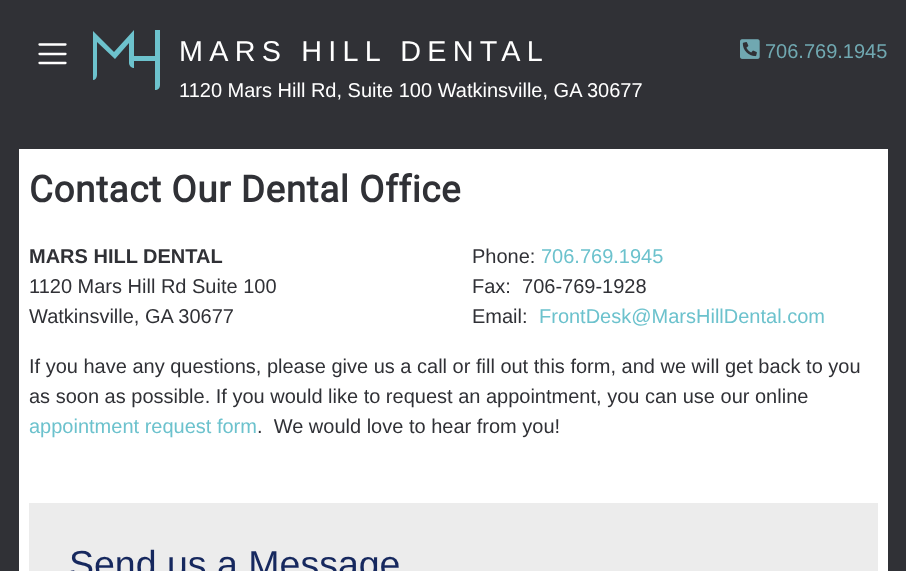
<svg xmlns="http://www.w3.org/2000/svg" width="906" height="571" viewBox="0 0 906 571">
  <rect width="100%" height="100%" fill="rgb(48,49,54)"/>
  <path d="M39.5 44.5H65.5M39.5 54H65.5M39.5 63H65.5" fill="none" stroke="rgb(255,255,255)" stroke-width="2.3" stroke-linecap="round"/>
  <path d="M155 30V56H134V30L114 52L93 31V80C95 80 97 78 97 75V42L115 59L129 43V63C129 66 132 68 134 68V61H155V90C158 90 160 88 160 85V30Z" fill="rgb(109,194,205)"/>
  <text x="179" y="61" font-family="Liberation Sans" font-size="28.75" letter-spacing="6.25" fill="rgb(255,255,255)">MARS HILL DENTAL</text>
  <text x="179" y="97" font-family="Liberation Sans" font-size="20" fill="rgb(255,255,255)">1120 Mars Hill Rd, Suite 100 Watkinsville, GA 30677</text>
  <image x="740" y="39" width="20" height="20" href="pic1.png"/>
  <text x="765" y="58" font-family="Liberation Sans" font-size="20" fill="rgb(112,168,177)">706.769.1945</text>
  <rect x="19" y="149" width="869" height="422" fill="rgb(255,255,255)"/>
  <text x="29" y="202" font-family="Roboto" font-size="36.75" font-weight="bold" letter-spacing="0.6" fill="rgb(48,49,54)">Contact Our Dental Office</text>
  <text x="29" y="263" font-family="Liberation Sans" font-size="20" font-weight="bold" fill="rgb(48,49,54)">MARS HILL DENTAL</text>
  <g font-family="Liberation Sans" font-size="20" fill="rgb(48,49,54)">
    <text>
      <tspan x="29" y="293">1120 Mars Hill Rd Suite 100</tspan>
      <tspan x="29" y="323">Watkinsville, GA 30677</tspan>
    </text>
    <text x="472" y="263">Phone:</text>
  </g>
  <text x="541" y="263" font-family="Liberation Sans" font-size="20" fill="rgb(108,194,205)">706.769.1945</text>
  <g font-family="Liberation Sans" font-size="20" fill="rgb(48,49,54)">
    <text xml:space="preserve"><tspan x="472" y="293">Fax:  706-769-1928</tspan><tspan x="472" y="323">Email:</tspan></text>
  </g>
  <text x="539" y="323" font-family="Liberation Sans" font-size="20" fill="rgb(108,194,205)">FrontDesk@MarsHillDental.com</text>
  <g font-family="Liberation Sans" font-size="20" fill="rgb(48,49,54)">
    <text>
      <tspan x="29" y="373">If you have any questions, please give us a call or fill out this form, and we will get back to you</tspan>
      <tspan x="29" y="403">as soon as possible. If you would like to request an appointment, you can use our online</tspan>
    </text>
  </g>
  <text x="29" y="433" font-family="Liberation Sans" font-size="20" fill="rgb(108,194,205)">appointment request form</text>
  <text x="257" y="433" font-family="Liberation Sans" font-size="20" fill="rgb(48,49,54)" xml:space="preserve">.  We would love to hear from you!</text>
  <rect x="29" y="503" width="849" height="68" fill="rgb(236,236,236)"/>
  <text x="69" y="577" font-family="Liberation Sans" font-size="37.5" fill="rgb(22,40,94)">Send us a Message</text>
</svg>
